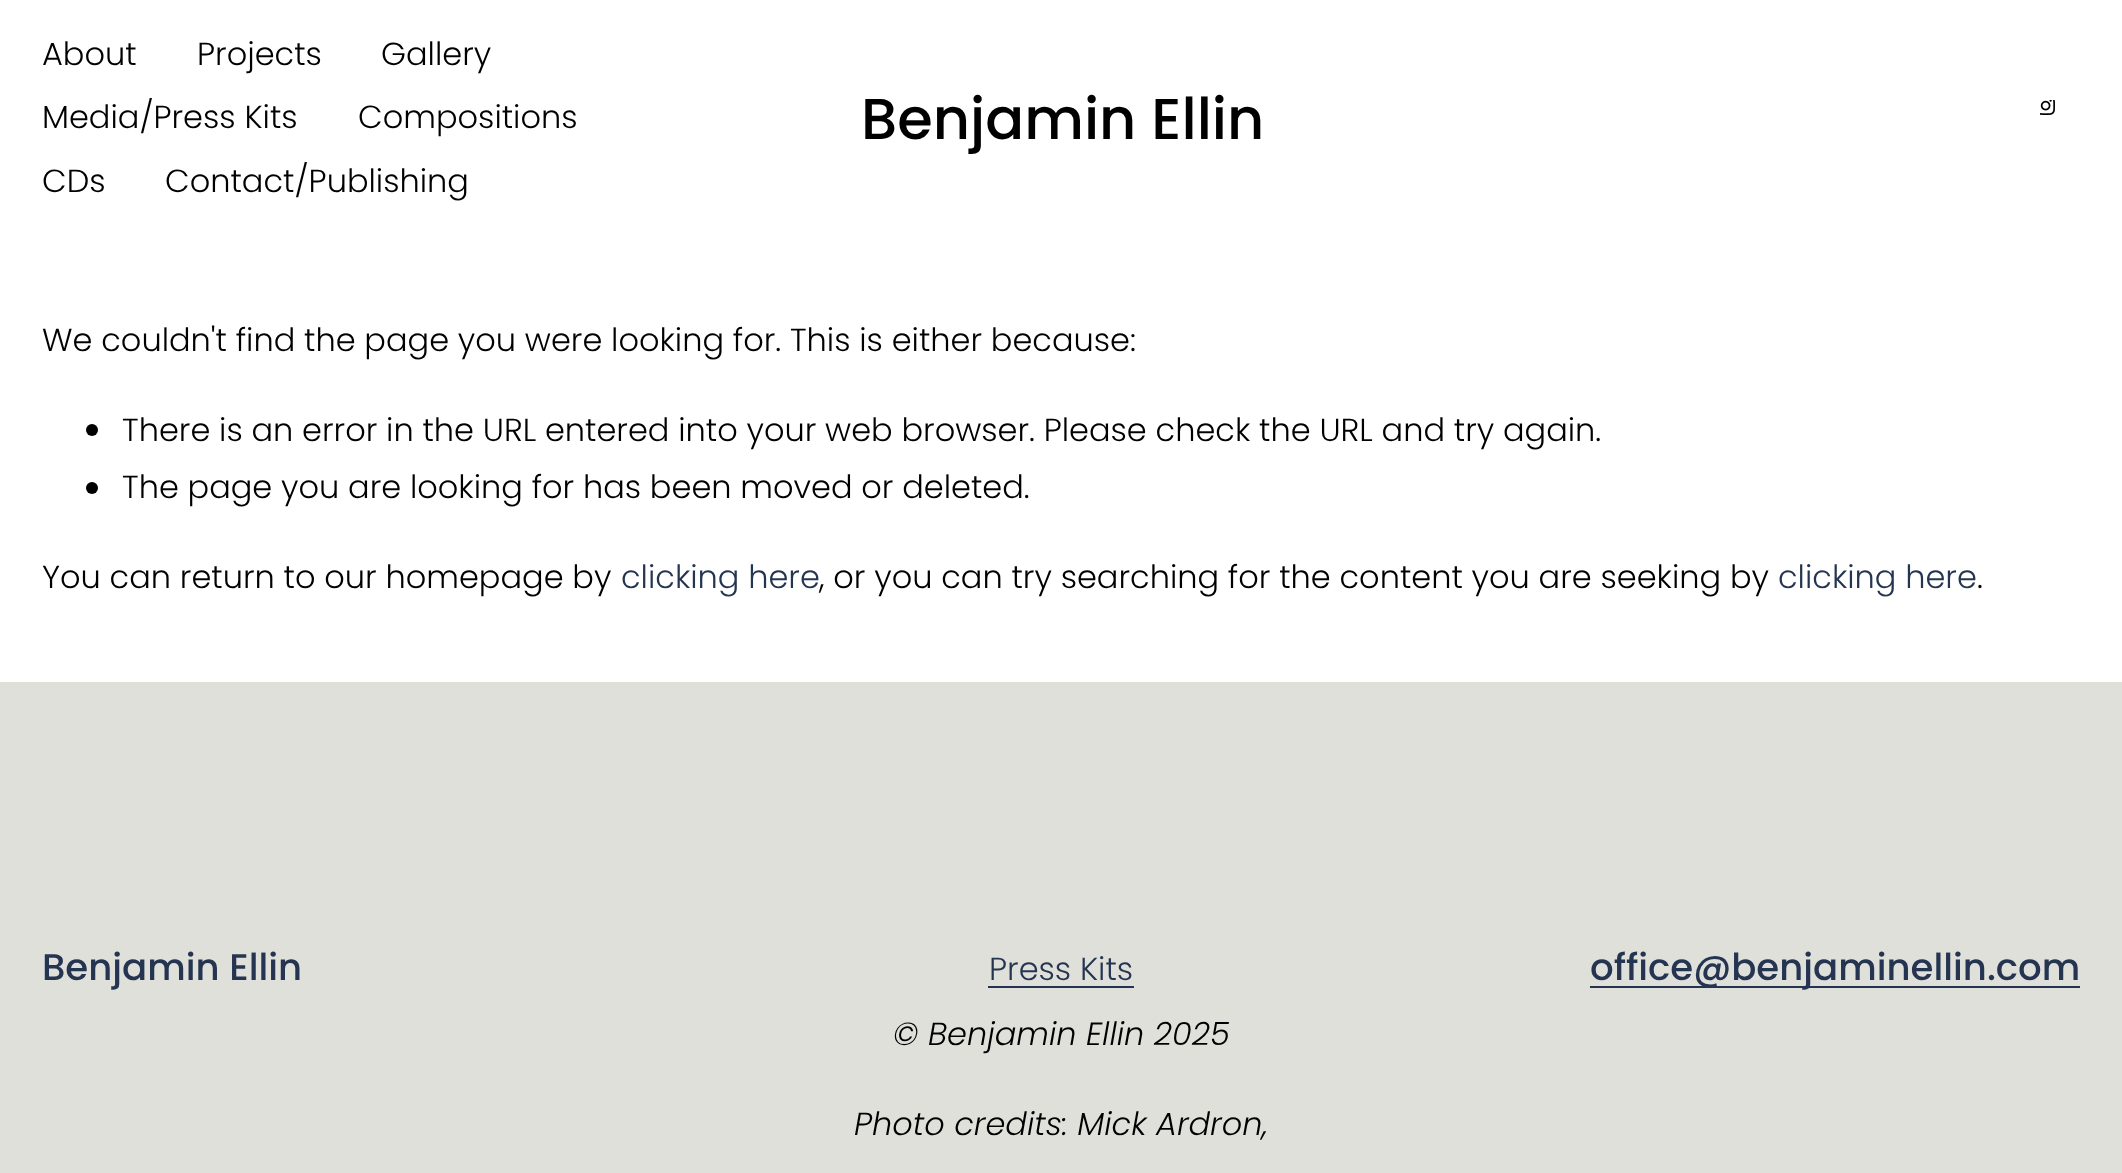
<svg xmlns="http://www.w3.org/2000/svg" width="2122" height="1173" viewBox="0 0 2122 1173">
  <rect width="100%" height="100%" fill="rgb(255,255,255)"/>
  <g font-family="Poppins" font-size="32" font-weight="300" fill="rgb(0,0,0)">
    <text x="42" y="65">About</text>
    <text x="197" y="65">Projects</text>
    <text x="381" y="65">Gallery</text>
    <text x="42" y="128">Media/Press Kits</text>
    <text x="358" y="128">Compositions</text>
    <text x="42" y="192">CDs</text>
    <text x="165" y="192">Contact/Publishing</text>
  </g>
  <text x="861" y="139" font-family="Poppins" font-size="57.5" font-weight="500" fill="rgb(0,0,0)">Benjamin Ellin</text>
  <image x="2040" y="100" width="15" height="15" href="pic1.png"/>
  <text x="42" y="351" font-family="Poppins" font-size="32" font-weight="300" fill="rgb(0,0,0)">We couldn't find the page you were looking for. This is either because:</text>
  <circle cx="92" cy="430" r="6" fill="rgb(0,0,0)"/>
  <text x="122" y="441" font-family="Poppins" font-size="32" font-weight="300" fill="rgb(0,0,0)">There is an error in the URL entered into your web browser. Please check the URL and try again.</text>
  <circle cx="92" cy="488" r="6" fill="rgb(0,0,0)"/>
  <g font-family="Poppins" font-size="32" font-weight="300" fill="rgb(0,0,0)">
    <text x="122" y="498">The page you are looking for has been moved or deleted.</text>
    <text x="42" y="588">You can return to our homepage by</text>
  </g>
  <text x="621" y="588" font-family="Poppins" font-size="32" font-weight="300" fill="rgb(37,53,81)">clicking here</text>
  <text x="819" y="588" font-family="Poppins" font-size="32" font-weight="300" fill="rgb(0,0,0)">, or you can try searching for the content you are seeking by</text>
  <text x="1778" y="588" font-family="Poppins" font-size="32" font-weight="300" fill="rgb(37,53,81)">clicking here</text>
  <text x="1977" y="588" font-family="Poppins" font-size="32" font-weight="300" fill="rgb(0,0,0)">.</text>
  <rect x="0" y="682" width="2122" height="491" fill="rgb(224,224,219)"/>
  <text x="42" y="980" font-family="Poppins" font-size="37.1" font-weight="500" fill="rgb(37,53,81)">Benjamin Ellin</text>
  <text x="989" y="980" font-family="Poppins" font-size="32" font-weight="300" fill="rgb(37,53,81)">Press Kits</text>
  <rect x="988" y="986" width="146" height="2" fill="rgb(37,53,81)"/>
  <rect x="1590" y="986" width="490" height="2" fill="rgb(37,53,81)"/>
  <text x="1590" y="980" font-family="Poppins" font-size="37.1" font-weight="500" fill="rgb(37,53,81)">office@benjaminellin.com</text>
  <g font-family="Poppins" font-size="32" font-weight="300" font-style="italic" fill="rgb(0,0,0)">
    <text x="893" y="1045">© Benjamin Ellin 2025</text>
    <text x="854" y="1135">Photo credits: Mick Ardron,</text>
  </g>
</svg>
